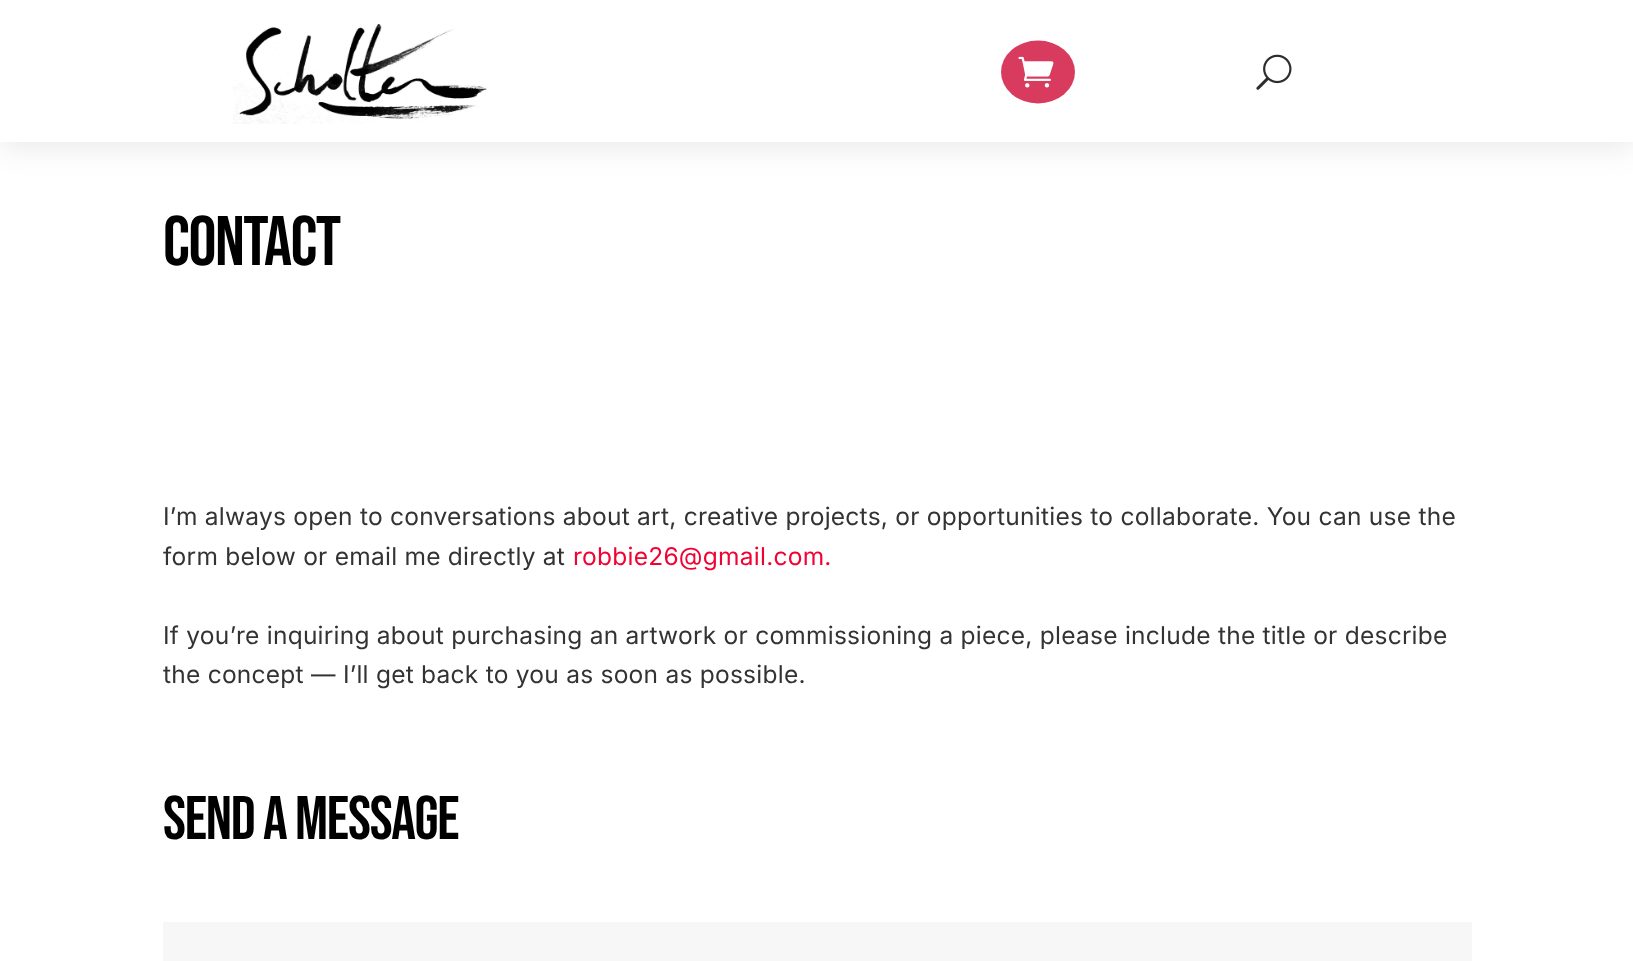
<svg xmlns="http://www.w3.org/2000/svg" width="1633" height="961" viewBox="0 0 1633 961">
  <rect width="100%" height="100%" fill="rgb(255,255,255)"/>
  <rect x="0" y="4" width="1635" height="141" fill="rgba(0,0,0,0.1)" filter="blur(16px)"/>
  <rect x="0" y="0" width="1633" height="142" fill="rgb(255,255,255)"/>
  <image x="233" y="24" width="254" height="100" href="pic1.png"/>
  <ellipse cx="1038" cy="72" rx="37" ry="31.5" fill="rgb(217,59,95)"/>
  <image x="1018" y="56" width="36" height="32" href="pic2.png"/>
  <image x="1256" y="54" width="36" height="36" href="pic3.png"/>
  <text x="163" y="265" font-family="Bebas Neue" font-size="70" letter-spacing="-1.5" fill="rgb(0,0,0)">CONTACT</text>
  <g font-family="Inter" font-size="24.5" letter-spacing="0.25" fill="rgb(51,51,51)">
    <text>
      <tspan x="163" y="525">I’m always open to conversations about art, creative projects, or opportunities to collaborate. You can use the</tspan>
      <tspan x="163" y="565">form below or email me directly at</tspan>
    </text>
  </g>
  <text x="573" y="565" font-family="Inter" font-size="24.5" letter-spacing="0.25" fill="rgb(242,2,50)">robbie26@gmail.com.</text>
  <g font-family="Inter" font-size="24.5" letter-spacing="0.25" fill="rgb(51,51,51)">
    <text>
      <tspan x="163" y="644">If you’re inquiring about purchasing an artwork or commissioning a piece, please include the title or describe</tspan>
      <tspan x="163" y="683">the concept — I’ll get back to you as soon as possible.</tspan>
    </text>
  </g>
  <text x="163" y="839" font-family="Bebas Neue" font-size="61.5" letter-spacing="-1.25" fill="rgb(0,0,0)">SEND A MESSAGE</text>
  <rect x="163" y="922" width="1309" height="39" fill="rgb(247,247,247)"/>
</svg>
